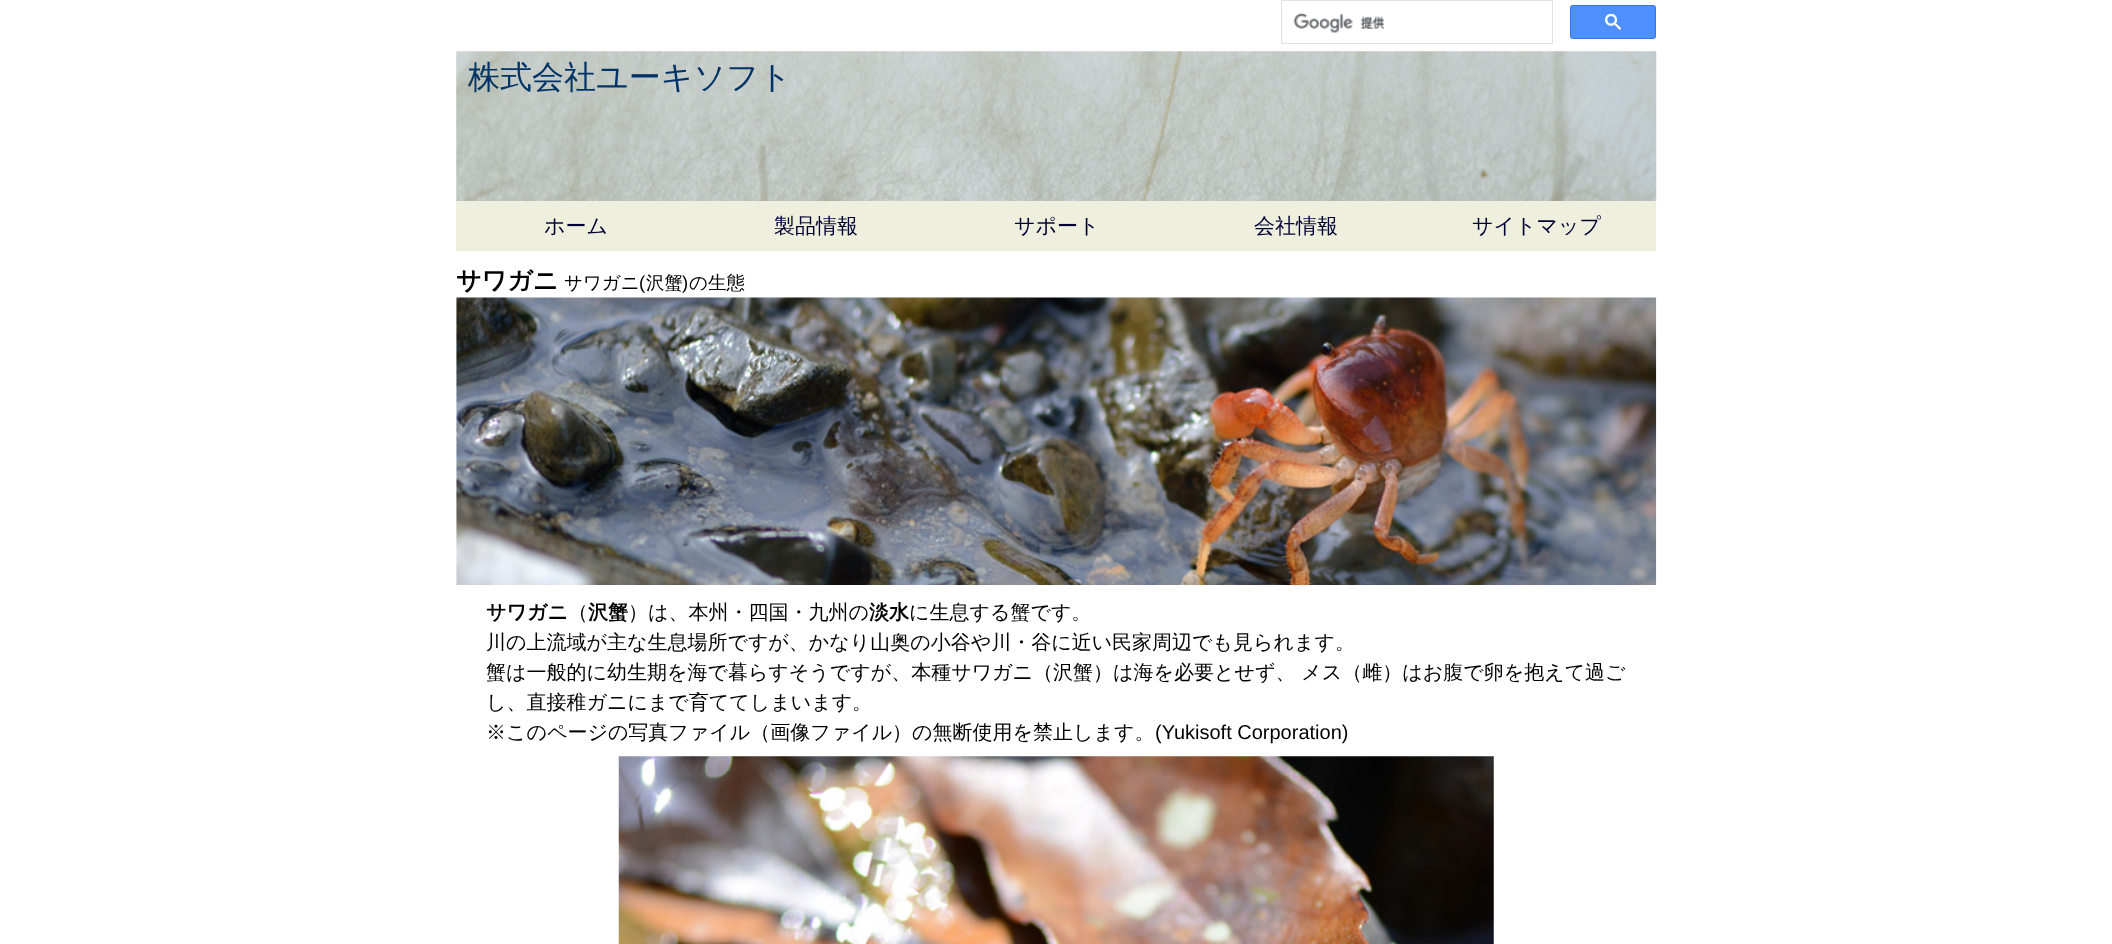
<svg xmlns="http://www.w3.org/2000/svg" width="2112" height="944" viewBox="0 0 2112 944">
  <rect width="100%" height="100%" fill="rgb(255,255,255)"/>
  <rect x="1281.5" y="0.5" width="271" height="43" fill="none" stroke="rgb(223,225,229)"/>
  <image x="1293" y="13" width="92" height="20" href="pic1.png"/>
  <rect x="1570.5" y="5.5" width="85" height="33" rx="2" fill="rgb(77,144,254)" stroke="rgb(48,121,237)"/>
  <image x="1605" y="14" width="16" height="16" href="pic2.png"/>
  <image x="456" y="51" width="1201" height="151" href="pic3.png"/>
  <text x="468" y="88" font-family="WenQuanYi Zen Hei" font-size="32" font-weight="500" fill="rgb(0,51,102)">株式会社ユーキソフト</text>
  <rect x="456" y="201" width="1200" height="50" fill="rgb(239,239,222)"/>
  <g font-family="WenQuanYi Zen Hei" font-size="21" font-weight="500" fill="rgb(0,0,51)">
    <text x="544" y="233">ホーム</text>
    <text x="774" y="233">製品情報</text>
    <text x="1014" y="233">サポート</text>
    <text x="1254" y="233">会社情報</text>
    <text x="1472" y="233">サイトマップ</text>
  </g>
  <text x="456" y="289" font-family="WenQuanYi Zen Hei" font-size="25" font-weight="bold" fill="rgb(0,0,0)">サワガニ</text>
  <text x="564" y="289" font-family="WenQuanYi Zen Hei" font-size="18.5" font-weight="500" fill="rgb(0,0,0)">サワガニ</text>
  <text x="639" y="289" font-family="Liberation Sans" font-size="18.5" fill="rgb(0,0,0)">(</text>
  <text x="646" y="289" font-family="WenQuanYi Zen Hei" font-size="18.5" font-weight="500" fill="rgb(0,0,0)">沢蟹</text>
  <text x="682" y="289" font-family="Liberation Sans" font-size="18.5" fill="rgb(0,0,0)">)</text>
  <text x="689" y="289" font-family="WenQuanYi Zen Hei" font-size="18.5" font-weight="500" fill="rgb(0,0,0)">の生態</text>
  <image x="456" y="297" width="1201" height="288" href="pic4.png"/>
  <text x="486" y="619" font-family="WenQuanYi Zen Hei" font-size="20" font-weight="bold" fill="rgb(0,0,0)">サワガニ</text>
  <text x="568" y="619" font-family="WenQuanYi Zen Hei" font-size="20" font-weight="500" fill="rgb(0,0,0)">（</text>
  <text x="588" y="619" font-family="WenQuanYi Zen Hei" font-size="20" font-weight="bold" fill="rgb(0,0,0)">沢蟹</text>
  <text x="628" y="619" font-family="WenQuanYi Zen Hei" font-size="20" font-weight="500" fill="rgb(0,0,0)">）は、本州・四国・九州の</text>
  <text x="869" y="619" font-family="WenQuanYi Zen Hei" font-size="20" font-weight="bold" fill="rgb(0,0,0)">淡水</text>
  <g font-family="WenQuanYi Zen Hei" font-size="20" font-weight="500" fill="rgb(0,0,0)">
    <text x="909" y="619">に生息する蟹です。</text>
    <text>
      <tspan x="486" y="649">川の上流域が主な生息場所ですが、かなり山奥の小谷や川・谷に近い民家周辺でも見られます。</tspan>
      <tspan x="486" y="679">蟹は一般的に幼生期を海で暮らすそうですが、本種サワガニ（沢蟹）は海を必要とせず、 メス（雌）はお腹で卵を抱えて過ご</tspan>
      <tspan x="486" y="709">し、直接稚ガニにまで育ててしまいます。</tspan>
      <tspan x="486" y="739">※このページの写真ファイル（画像ファイル）の無断使用を禁止します。</tspan>
    </text>
  </g>
  <text x="1155" y="739" font-family="Liberation Sans" font-size="20" fill="rgb(0,0,0)">(Yukisoft Corporation)</text>
  <image x="618" y="756" width="876" height="188" href="pic5.png"/>
</svg>
